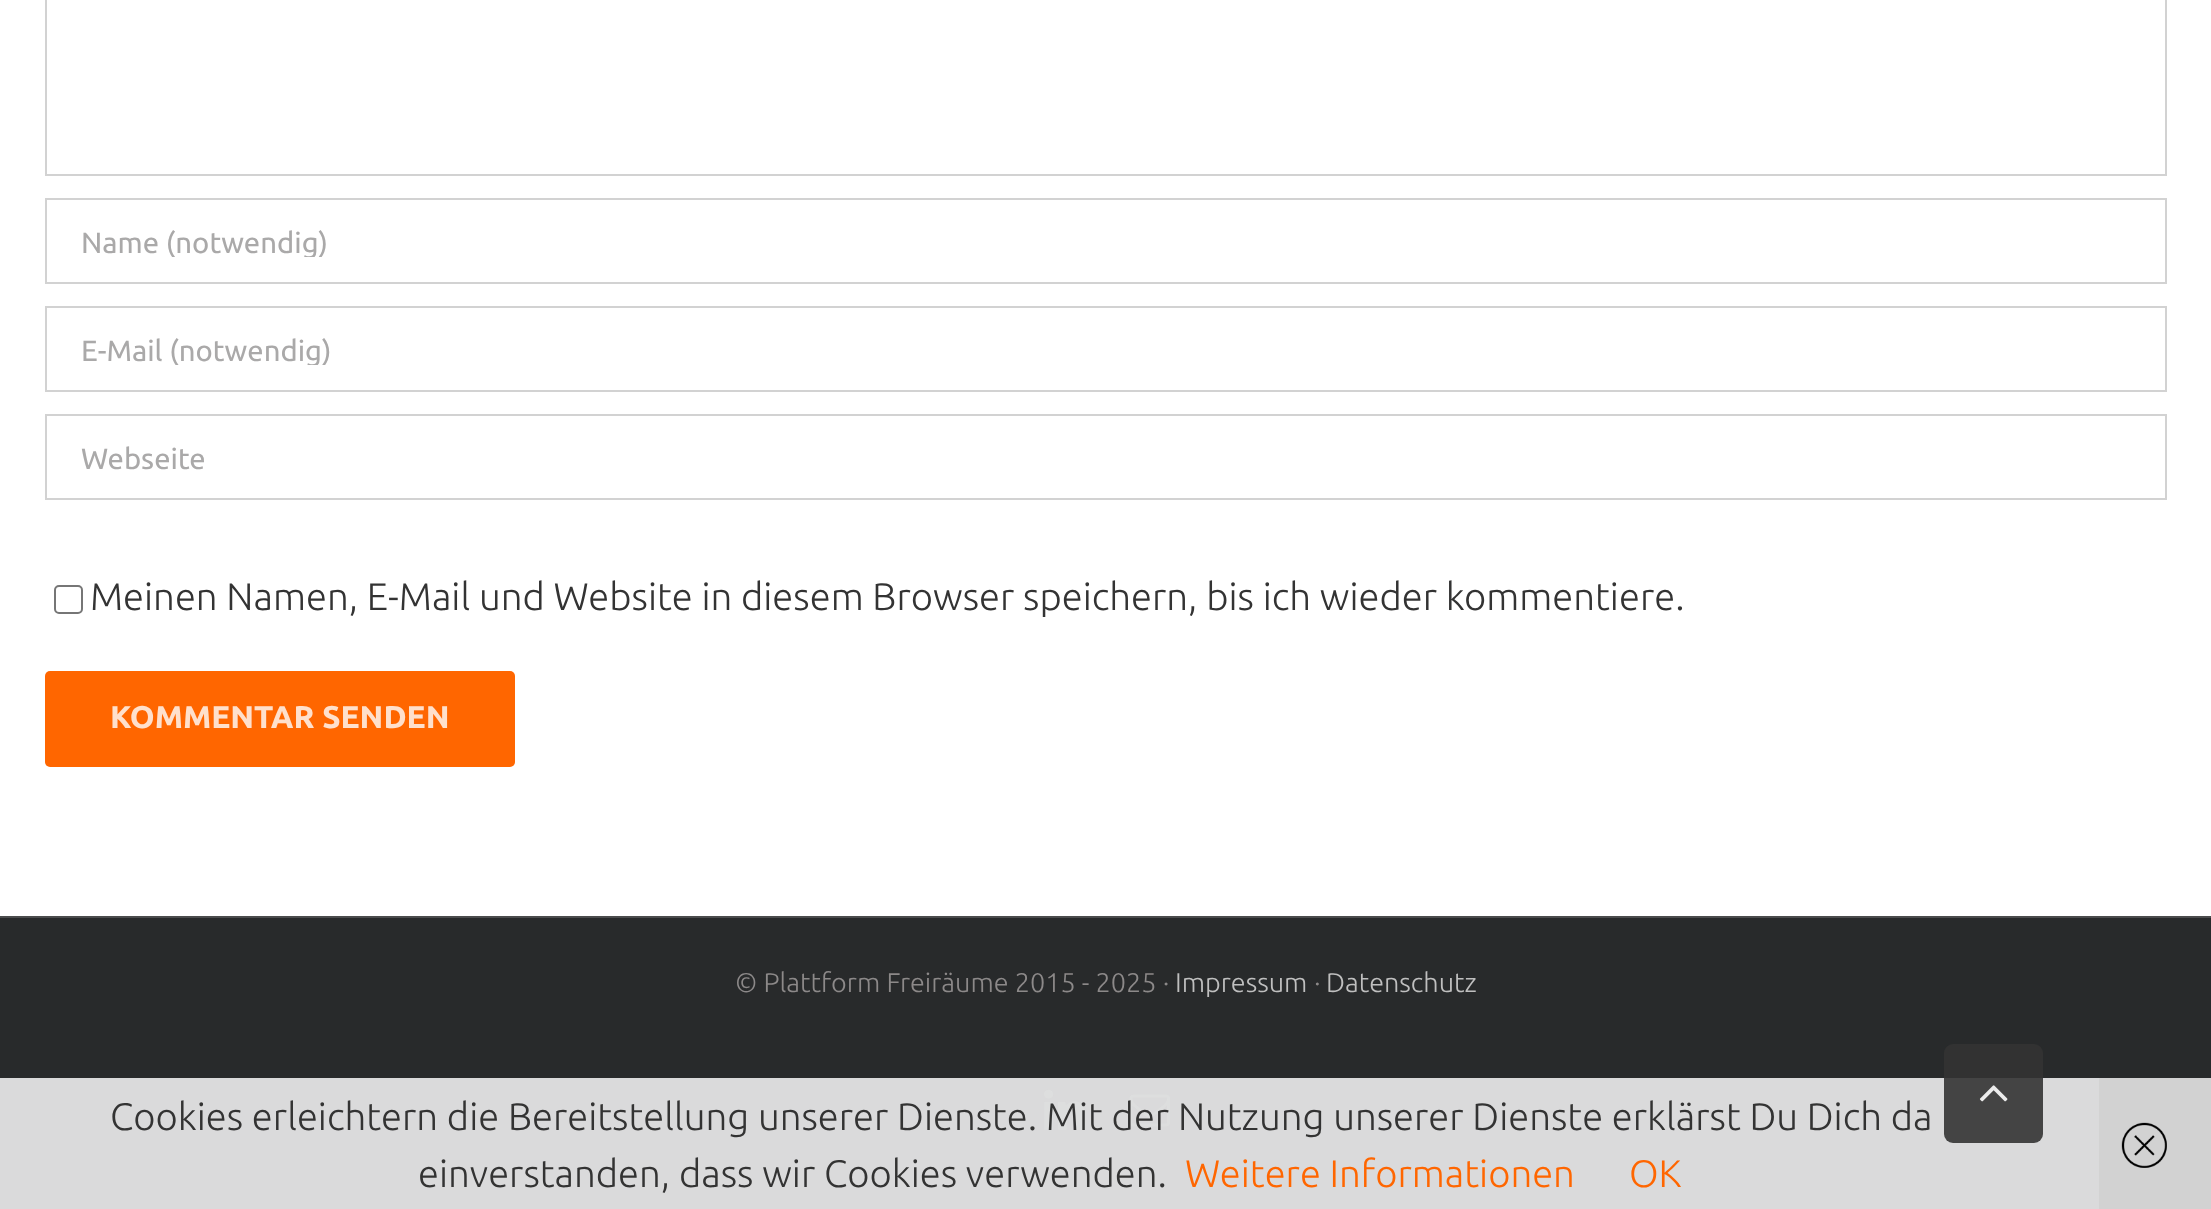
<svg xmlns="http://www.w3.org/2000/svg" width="2211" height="1209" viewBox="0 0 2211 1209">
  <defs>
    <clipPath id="clip1"><rect x="81" y="225" width="2050" height="32"/></clipPath>
    <clipPath id="clip2"><rect x="81" y="333" width="2050" height="32"/></clipPath>
  </defs>
  <rect width="100%" height="100%" fill="rgb(255,255,255)"/>
  <rect x="46" y="-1" width="2120" height="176" fill="none" stroke="rgb(210,210,210)" stroke-width="2"/>
  <rect x="46" y="199" width="2120" height="84" fill="none" stroke="rgb(210,210,210)" stroke-width="2"/>
  <g clip-path="url(#clip1)">
    <text x="81" y="253" font-family="Ubuntu" font-size="29.25" fill="rgb(170,169,169)">Name (notwendig)</text>
  </g>
  <rect x="46" y="307" width="2120" height="84" fill="none" stroke="rgb(210,210,210)" stroke-width="2"/>
  <g clip-path="url(#clip2)">
    <text x="81" y="361" font-family="Ubuntu" font-size="29.25" fill="rgb(170,169,169)">E-Mail (notwendig)</text>
  </g>
  <rect x="46" y="415" width="2120" height="84" fill="none" stroke="rgb(210,210,210)" stroke-width="2"/>
  <text x="81" y="469" font-family="Ubuntu" font-size="29.25" fill="rgb(170,169,169)">Webseite</text>
  <rect x="55" y="586" width="27" height="27" rx="4" fill="none" stroke="rgb(118,118,118)" stroke-width="2"/>
  <text x="90" y="610" font-family="Ubuntu" font-size="38.25" font-weight="300" fill="rgb(51,51,51)">Meinen Namen, E-Mail und Website in diesem Browser speichern, bis ich wieder kommentiere.</text>
  <rect x="45" y="671" width="470" height="96" rx="5" fill="rgb(255,102,0)"/>
  <text x="110" y="728" font-family="Ubuntu" font-size="31.5" font-weight="bold" fill="rgb(255,224,204)">KOMMENTAR SENDEN</text>
  <rect x="0" y="918" width="2211" height="160" fill="rgb(40,42,43)"/>
  <rect x="0" y="1078" width="2099" height="131" fill="rgb(218,218,219)"/>
  <rect x="0" y="916" width="2211" height="2" fill="rgb(75,76,77)"/>
  <text x="735" y="992" font-family="Ubuntu" font-size="27" font-weight="300" fill="rgb(140,137,137)">© Plattform Freiräume 2015 - 2025 ·</text>
  <text x="1175" y="992" font-family="Ubuntu" font-size="27" font-weight="300" fill="rgb(191,191,191)">Impressum</text>
  <text x="1314" y="992" font-family="Ubuntu" font-size="27" font-weight="300" fill="rgb(140,137,137)">·</text>
  <text x="1326" y="992" font-family="Ubuntu" font-size="27" font-weight="300" fill="rgb(191,191,191)">Datenschutz</text>
  <image x="1044" y="1089" width="41" height="41" href="pic1.png"/>
  <image x="1129" y="1094" width="41" height="33" href="pic2.png"/>
  <g font-family="Ubuntu" font-size="38.25" font-weight="300" fill="rgb(51,51,51)">
    <text x="110" y="1130">Cookies erleichtern die Bereitstellung unserer Dienste. Mit der Nutzung unserer Dienste erklärst Du Dich da</text>
    <text x="418" y="1187">einverstanden, dass wir Cookies verwenden.</text>
  </g>
  <g font-family="Ubuntu" font-size="38.25" font-weight="300" fill="rgb(255,102,0)">
    <text x="1185" y="1187">Weitere Informationen</text>
    <text x="1629" y="1187">OK</text>
  </g>
  <rect x="2099" y="1078" width="112" height="131" fill="rgb(210,210,210)"/>
  <image x="2121" y="1122" width="46" height="46" href="pic3.png"/>
  <rect x="1944" y="1044" width="99" height="99" rx="9" fill="rgba(51,51,51,0.9)"/>
  <image x="1979" y="1085" width="29" height="17" href="pic4.png"/>
</svg>
